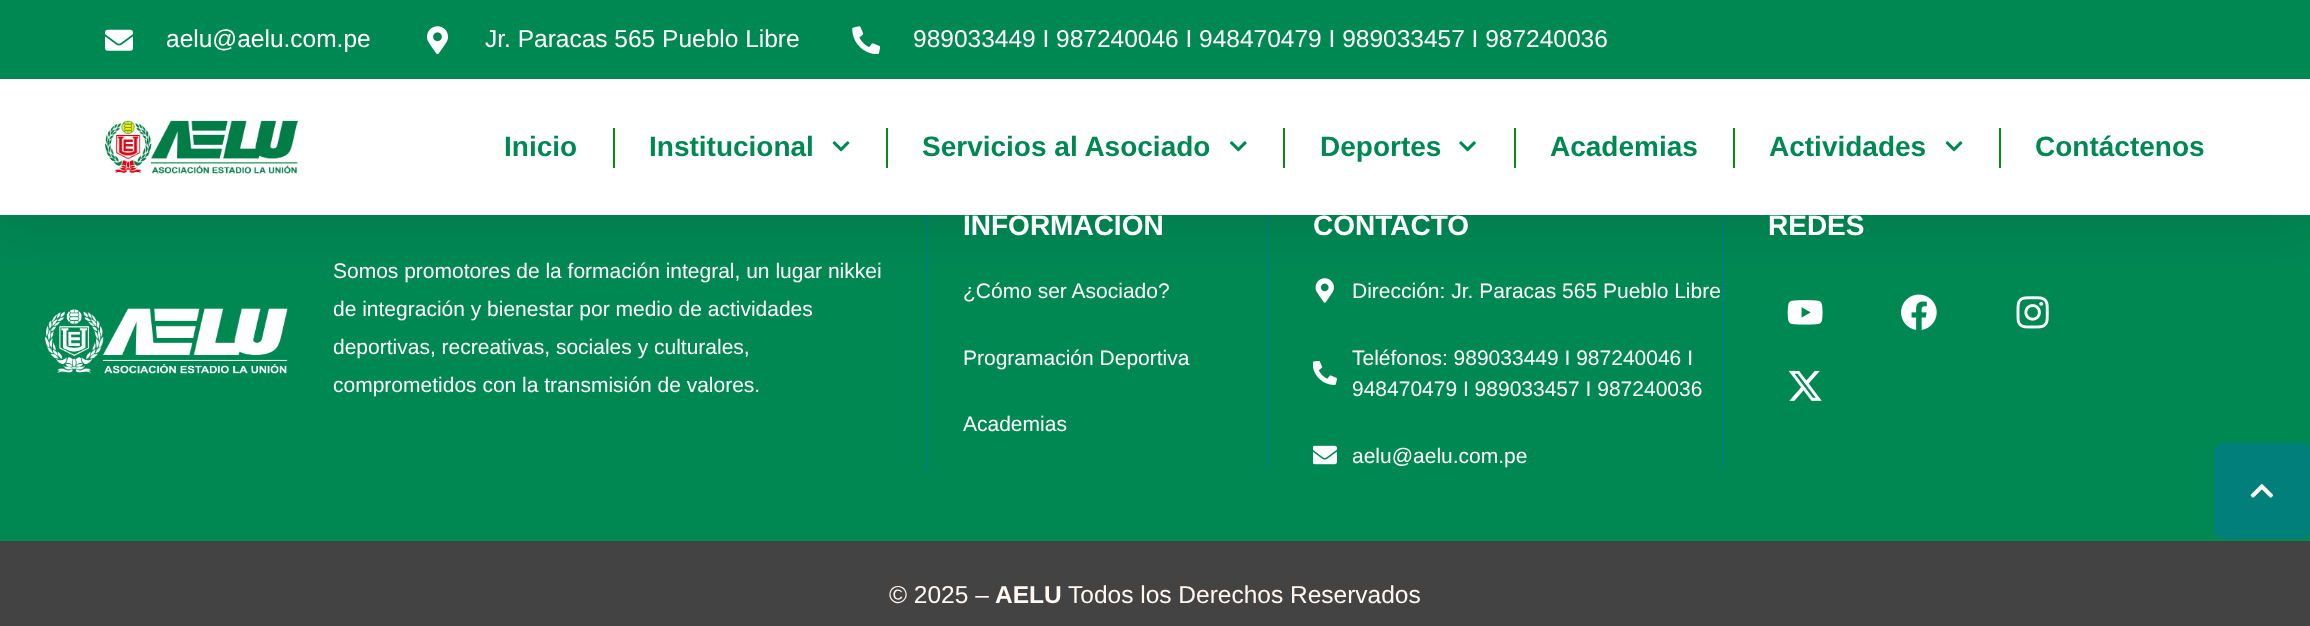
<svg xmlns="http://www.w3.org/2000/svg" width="2310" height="626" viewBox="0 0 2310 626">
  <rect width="100%" height="100%" fill="rgb(0,136,83)"/>
  <rect x="1267" y="212" width="2" height="259" fill="rgb(0,127,123)"/>
  <rect x="1722" y="212" width="2" height="259" fill="rgb(0,127,123)"/>
  <image x="1315" y="278" width="19" height="25" href="pic8.png"/>
  <image x="1787" y="300" width="36" height="25" href="pic11.png"/>
  <image x="1901" y="294" width="36" height="36" href="pic12.png"/>
  <image x="2016" y="296" width="33" height="33" href="pic13.png"/>
  <rect x="926" y="212" width="2" height="259" fill="rgb(0,127,123)"/>
  <rect x="0" y="9" width="2310" height="215" fill="rgba(0,0,0,0.1)" filter="blur(26px)"/>
  <rect x="0" y="0" width="2310" height="79" fill="rgb(0,136,83)"/>
  <image x="105" y="29" width="28" height="22" href="pic1.png"/>
  <text x="166" y="47" font-family="Liberation Sans" font-size="24.5" fill="rgb(255,255,255)">aelu@aelu.com.pe</text>
  <image x="427" y="26" width="21" height="28" href="pic2.png"/>
  <text x="485" y="47" font-family="Liberation Sans" font-size="24.5" fill="rgb(255,255,255)">Jr. Paracas 565 Pueblo Libre</text>
  <image x="852" y="26" width="28" height="28" href="pic3.png"/>
  <text x="913" y="47" font-family="Liberation Sans" font-size="24.5" fill="rgb(255,255,255)">989033449 I 987240046 I 948470479 I 989033457 I 987240036</text>
  <rect x="0" y="79" width="2310" height="136" fill="rgb(255,255,255)"/>
  <image x="105" y="120" width="193" height="54" href="pic4.png"/>
  <text x="504" y="156" font-family="Liberation Sans" font-size="28" font-weight="bold" fill="rgb(0,136,83)">Inicio</text>
  <rect x="613" y="128" width="2" height="40" fill="rgb(11,138,20)"/>
  <text x="649" y="156" font-family="Liberation Sans" font-size="28" font-weight="bold" fill="rgb(0,136,83)">Institucional</text>
  <image x="832" y="141" width="18" height="11" href="pic5.png"/>
  <rect x="886" y="128" width="2" height="40" fill="rgb(11,138,20)"/>
  <text x="922" y="156" font-family="Liberation Sans" font-size="28" font-weight="bold" fill="rgb(0,136,83)">Servicios al Asociado</text>
  <image x="1230" y="141" width="17" height="11" href="pic6.png"/>
  <rect x="1283" y="128" width="2" height="40" fill="rgb(11,138,20)"/>
  <text x="1320" y="156" font-family="Liberation Sans" font-size="28" font-weight="bold" fill="rgb(0,136,83)">Deportes</text>
  <image x="1459" y="141" width="17" height="11" href="pic7.png"/>
  <rect x="1514" y="128" width="2" height="40" fill="rgb(11,138,20)"/>
  <text x="1550" y="156" font-family="Liberation Sans" font-size="28" font-weight="bold" fill="rgb(0,136,83)">Academias</text>
  <rect x="1733" y="128" width="2" height="40" fill="rgb(11,138,20)"/>
  <text x="1769" y="156" font-family="Liberation Sans" font-size="28" font-weight="bold" fill="rgb(0,136,83)">Actividades</text>
  <image x="1945" y="141" width="18" height="11" href="pic5.png"/>
  <rect x="1999" y="128" width="2" height="40" fill="rgb(11,138,20)"/>
  <text x="2035" y="156" font-family="Liberation Sans" font-size="28" font-weight="bold" fill="rgb(0,136,83)">Contáctenos</text>
  <text x="963" y="235" font-family="Liberation Sans" font-size="28" font-weight="bold" fill="rgb(255,255,255)">INFORMACIÓN</text>
  <g font-family="Liberation Sans" font-size="21" fill="rgb(255,255,255)">
    <text x="963" y="298">¿Cómo ser Asociado?</text>
    <text x="963" y="365">Programación Deportiva</text>
    <text x="963" y="431">Academias</text>
  </g>
  <text x="1313" y="235" font-family="Liberation Sans" font-size="28" font-weight="bold" fill="rgb(255,255,255)">CONTACTO</text>
  <text x="1352" y="298" font-family="Liberation Sans" font-size="21" fill="rgb(255,255,255)">Dirección: Jr. Paracas 565 Pueblo Libre</text>
  <image x="1313" y="361" width="24" height="24" href="pic9.png"/>
  <g font-family="Liberation Sans" font-size="21" fill="rgb(255,255,255)">
    <text>
      <tspan x="1352" y="365">Teléfonos: 989033449 I 987240046 I</tspan>
      <tspan x="1352" y="396">948470479 I 989033457 I 987240036</tspan>
    </text>
  </g>
  <image x="1313" y="445" width="24" height="20" href="pic10.png"/>
  <text x="1352" y="463" font-family="Liberation Sans" font-size="21" fill="rgb(255,255,255)">aelu@aelu.com.pe</text>
  <text x="1768" y="235" font-family="Liberation Sans" font-size="28" font-weight="bold" fill="rgb(255,255,255)">REDES</text>
  <image x="1788" y="370" width="34" height="31" href="pic14.png"/>
  <image x="44" y="308" width="244" height="66" href="pic15.png"/>
  <g font-family="Liberation Sans" font-size="21" fill="rgb(255,255,255)">
    <text>
      <tspan x="333" y="278">Somos promotores de la formación integral, un lugar nikkei</tspan>
      <tspan x="333" y="316">de integración y bienestar por medio de actividades</tspan>
      <tspan x="333" y="354">deportivas, recreativas, sociales y culturales,</tspan>
      <tspan x="333" y="392">comprometidos con la transmisión de valores.</tspan>
    </text>
  </g>
  <rect x="2214" y="443" width="96" height="96" rx="9" fill="rgb(0,127,123)"/>
  <image x="2250" y="484" width="24" height="14" href="pic16.png"/>
  <rect x="0" y="541" width="2310" height="85" fill="rgb(67,67,67)"/>
  <text x="889" y="603" font-family="Liberation Sans" font-size="24.5" fill="rgb(255,247,241)">© 2025 –</text>
  <text x="995" y="603" font-family="Liberation Sans" font-size="24.5" font-weight="bold" fill="rgb(255,247,241)">AELU</text>
  <text x="1068" y="603" font-family="Liberation Sans" font-size="24.5" fill="rgb(255,247,241)">Todos los Derechos Reservados</text>
</svg>
